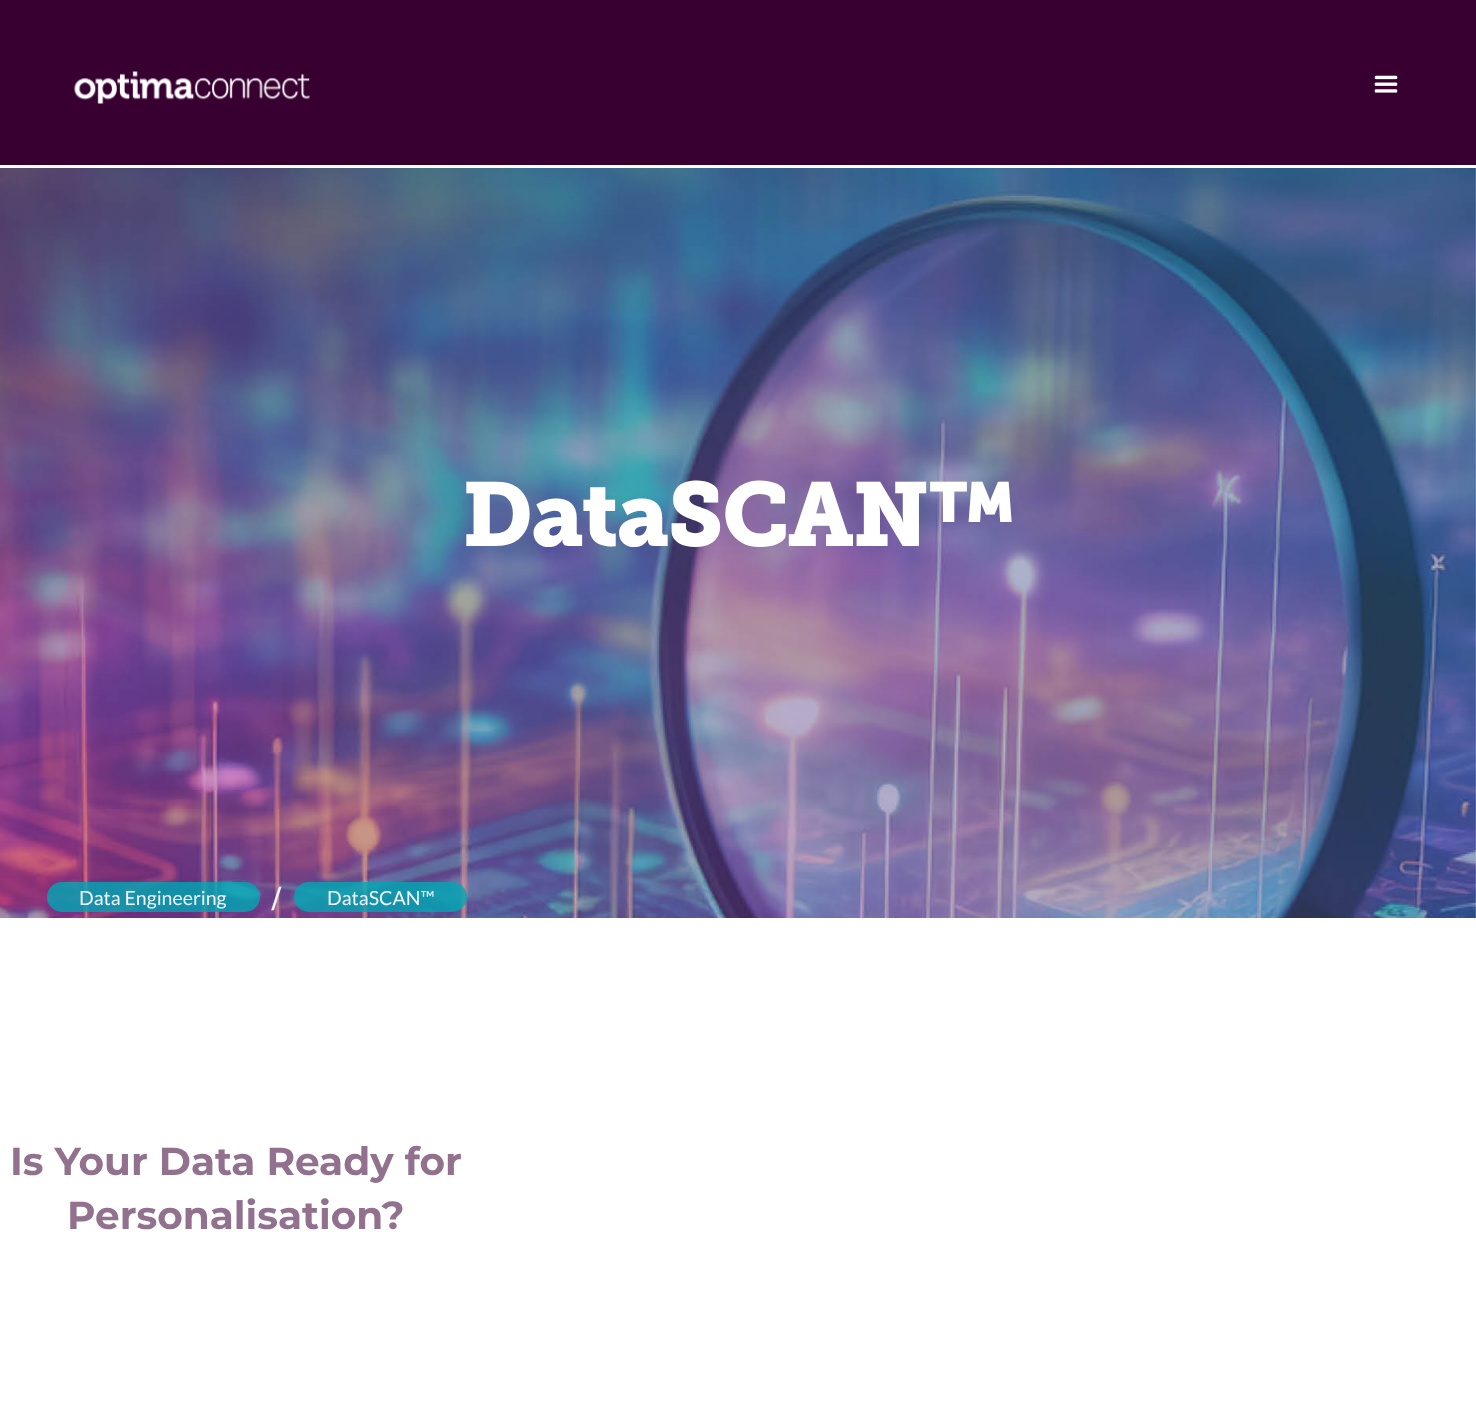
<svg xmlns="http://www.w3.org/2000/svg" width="1476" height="1422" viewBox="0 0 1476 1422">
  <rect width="100%" height="100%" fill="rgb(255,255,255)"/>
  <rect x="0" y="0" width="1476" height="165" fill="rgb(56,0,49)"/>
  <image x="74" y="71" width="236" height="33" href="pic1.png"/>
  <image x="1374" y="75" width="24" height="18" href="pic2.png"/>
  <image x="0" y="168" width="1476" height="750" href="pic3.png"/>
  <text x="462" y="546" font-family="'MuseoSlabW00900'" font-size="90" font-weight="bold" letter-spacing="-1.5" fill="rgb(255,255,255)">DataSCAN™</text>
  <rect x="47" y="882" width="213" height="30" rx="15" fill="rgba(0,168,180,0.8)"/>
  <text x="79" y="905" font-family="Lato" font-size="19.5" fill="rgb(242,247,253)">Data Engineering</text>
  <text x="270" y="909" font-family="Museo Slab" font-size="30" fill="rgb(242,247,253)">/</text>
  <rect x="294" y="882" width="173" height="30" rx="15" fill="rgba(0,168,180,0.8)"/>
  <text x="327" y="905" font-family="Lato" font-size="19.5" fill="rgb(242,247,253)">DataSCAN™</text>
  <g font-family="Montserrat" font-size="39" font-weight="bold" fill="rgb(145,113,141)">
    <text x="10" y="1175">Is Your Data Ready for</text>
    <text x="67" y="1229">Personalisation?</text>
  </g>
</svg>
